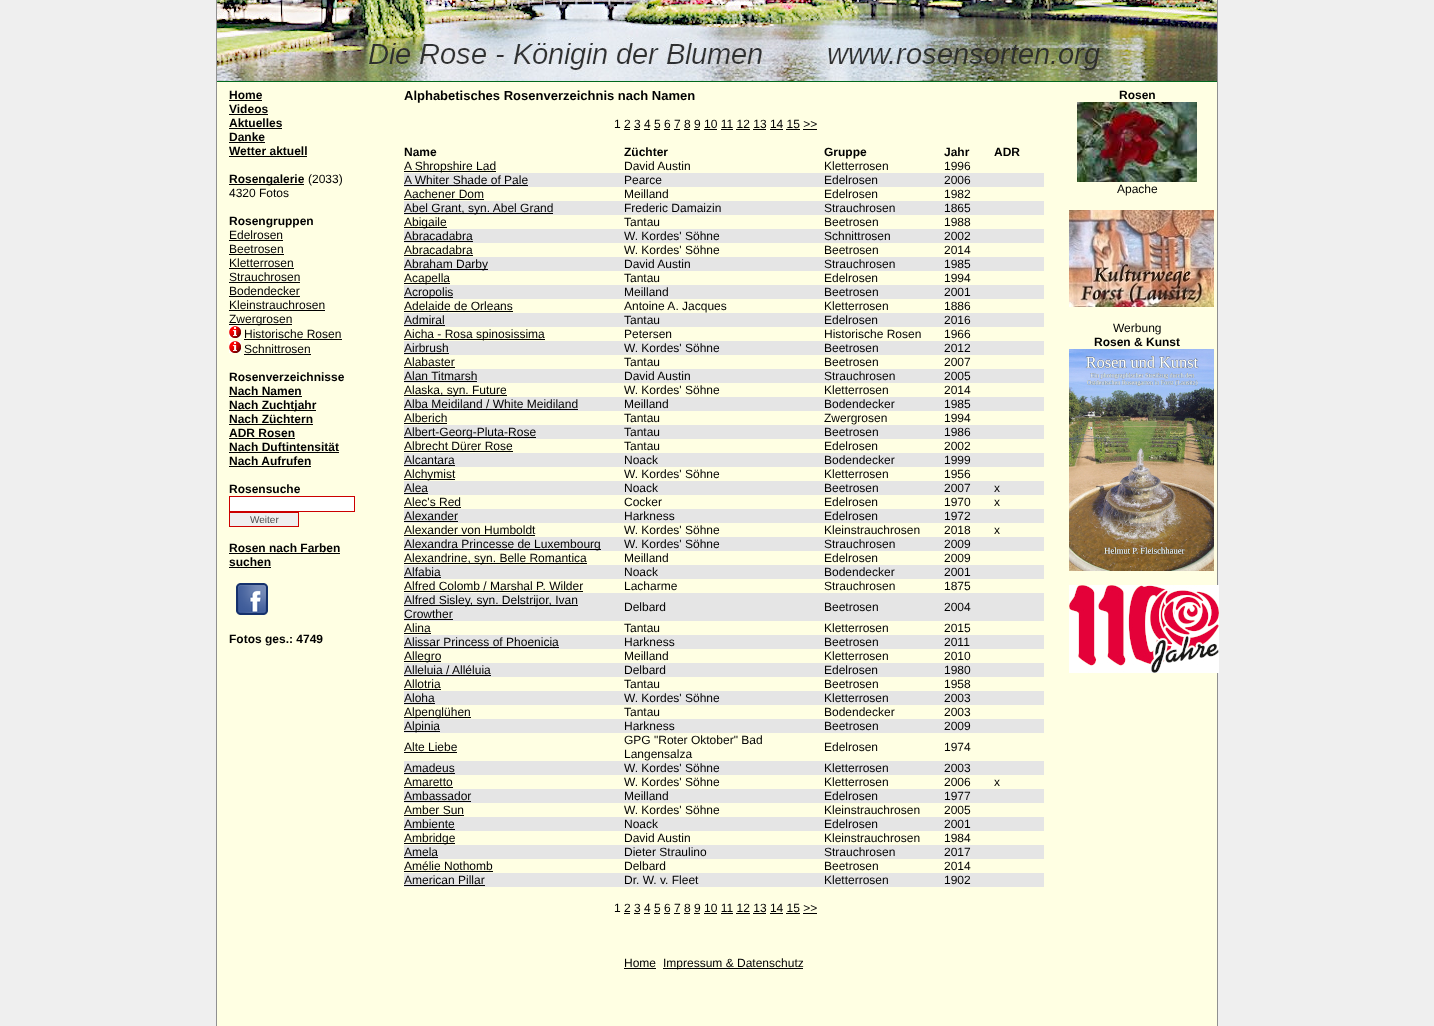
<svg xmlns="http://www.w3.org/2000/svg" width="1434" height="1026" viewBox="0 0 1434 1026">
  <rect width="100%" height="100%" fill="rgb(239,239,239)"/>
  <rect x="217" y="82" width="1000" height="944" fill="rgb(255,255,227)"/>
  <rect x="216.5" y="-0.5" width="1001" height="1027" fill="none" stroke="rgb(144,144,144)"/>
  <image x="217" y="0" width="1000" height="81" href="pic1.png"/>
  <rect x="217" y="81" width="1000" height="1" fill="rgb(0,105,28)"/>
  <text x="229" y="99" font-family="Liberation Sans" font-size="12" font-weight="bold" fill="rgb(0,0,0)">Home</text>
  <rect x="229" y="100" width="33" height="1" fill="rgb(0,0,0)"/>
  <text x="229" y="113" font-family="Liberation Sans" font-size="12" font-weight="bold" fill="rgb(0,0,0)">Videos</text>
  <rect x="229" y="114" width="39" height="1" fill="rgb(0,0,0)"/>
  <text x="229" y="127" font-family="Liberation Sans" font-size="12" font-weight="bold" fill="rgb(0,0,0)">Aktuelles</text>
  <rect x="229" y="128" width="53" height="1" fill="rgb(0,0,0)"/>
  <text x="229" y="141" font-family="Liberation Sans" font-size="12" font-weight="bold" fill="rgb(0,0,0)">Danke</text>
  <rect x="229" y="142" width="36" height="1" fill="rgb(0,0,0)"/>
  <text x="229" y="155" font-family="Liberation Sans" font-size="12" font-weight="bold" fill="rgb(0,0,0)">Wetter aktuell</text>
  <rect x="229" y="156" width="78" height="1" fill="rgb(0,0,0)"/>
  <rect x="229" y="184" width="75" height="1" fill="rgb(0,0,0)"/>
  <text x="229" y="183" font-family="Liberation Sans" font-size="12" font-weight="bold" fill="rgb(0,0,0)">Rosengalerie</text>
  <g font-family="Liberation Sans" font-size="12" fill="rgb(0,0,0)">
    <text x="308" y="183">(2033)</text>
    <text x="229" y="197">4320 Fotos</text>
  </g>
  <text x="229" y="225" font-family="Liberation Sans" font-size="12" font-weight="bold" fill="rgb(0,0,0)">Rosengruppen</text>
  <text x="229" y="239" font-family="Liberation Sans" font-size="12" fill="rgb(0,0,0)">Edelrosen</text>
  <rect x="229" y="240" width="54" height="1" fill="rgb(0,0,0)"/>
  <text x="229" y="253" font-family="Liberation Sans" font-size="12" fill="rgb(0,0,0)">Beetrosen</text>
  <rect x="229" y="254" width="55" height="1" fill="rgb(0,0,0)"/>
  <text x="229" y="267" font-family="Liberation Sans" font-size="12" fill="rgb(0,0,0)">Kletterrosen</text>
  <rect x="229" y="268" width="65" height="1" fill="rgb(0,0,0)"/>
  <text x="229" y="281" font-family="Liberation Sans" font-size="12" fill="rgb(0,0,0)">Strauchrosen</text>
  <rect x="229" y="282" width="71" height="1" fill="rgb(0,0,0)"/>
  <text x="229" y="295" font-family="Liberation Sans" font-size="12" fill="rgb(0,0,0)">Bodendecker</text>
  <rect x="229" y="296" width="71" height="1" fill="rgb(0,0,0)"/>
  <text x="229" y="309" font-family="Liberation Sans" font-size="12" fill="rgb(0,0,0)">Kleinstrauchrosen</text>
  <rect x="229" y="310" width="96" height="1" fill="rgb(0,0,0)"/>
  <rect x="229" y="324" width="63" height="1" fill="rgb(0,0,0)"/>
  <text x="229" y="323" font-family="Liberation Sans" font-size="12" fill="rgb(0,0,0)">Zwergrosen</text>
  <image x="229" y="326" width="12" height="12" href="pic2.png"/>
  <text x="244" y="338" font-family="Liberation Sans" font-size="12" fill="rgb(0,0,0)">Historische Rosen</text>
  <rect x="244" y="339" width="98" height="1" fill="rgb(0,0,0)"/>
  <image x="229" y="341" width="12" height="12" href="pic2.png"/>
  <text x="244" y="353" font-family="Liberation Sans" font-size="12" fill="rgb(0,0,0)">Schnittrosen</text>
  <rect x="244" y="354" width="67" height="1" fill="rgb(0,0,0)"/>
  <g font-family="Liberation Sans" font-size="12" font-weight="bold" fill="rgb(0,0,0)">
    <text>
      <tspan x="229" y="381">Rosenverzeichnisse</tspan>
      <tspan x="229" y="395">Nach Namen</tspan>
    </text>
  </g>
  <rect x="229" y="396" width="73" height="1" fill="rgb(0,0,0)"/>
  <rect x="229" y="410" width="87" height="1" fill="rgb(0,0,0)"/>
  <g font-family="Liberation Sans" font-size="12" font-weight="bold" fill="rgb(0,0,0)">
    <text>
      <tspan x="229" y="409">Nach Zuchtjahr</tspan>
      <tspan x="229" y="423">Nach Züchtern</tspan>
    </text>
  </g>
  <rect x="229" y="424" width="84" height="1" fill="rgb(0,0,0)"/>
  <text x="229" y="437" font-family="Liberation Sans" font-size="12" font-weight="bold" fill="rgb(0,0,0)">ADR Rosen</text>
  <rect x="229" y="438" width="66" height="1" fill="rgb(0,0,0)"/>
  <text x="229" y="451" font-family="Liberation Sans" font-size="12" font-weight="bold" fill="rgb(0,0,0)">Nach Duftintensität</text>
  <rect x="229" y="452" width="110" height="1" fill="rgb(0,0,0)"/>
  <text x="229" y="465" font-family="Liberation Sans" font-size="12" font-weight="bold" fill="rgb(0,0,0)">Nach Aufrufen</text>
  <rect x="229" y="466" width="82" height="1" fill="rgb(0,0,0)"/>
  <text x="229" y="493" font-family="Liberation Sans" font-size="12" font-weight="bold" fill="rgb(0,0,0)">Rosensuche</text>
  <rect x="229.5" y="496.5" width="125" height="15" fill="rgb(255,255,255)" stroke="rgb(204,0,0)"/>
  <rect x="229.5" y="512.5" width="69" height="14" fill="rgb(239,239,239)" stroke="rgb(204,0,0)"/>
  <text x="250" y="523" font-family="Liberation Sans" font-size="10" fill="rgb(77,77,77)">Weiter</text>
  <text x="229" y="552" font-family="Liberation Sans" font-size="12" font-weight="bold" fill="rgb(0,0,0)">Rosen nach Farben</text>
  <rect x="229" y="553" width="111" height="1" fill="rgb(0,0,0)"/>
  <text x="229" y="566" font-family="Liberation Sans" font-size="12" font-weight="bold" fill="rgb(0,0,0)">suchen</text>
  <rect x="229" y="567" width="42" height="1" fill="rgb(0,0,0)"/>
  <image x="236" y="583" width="32" height="32" href="pic3.png"/>
  <text x="229" y="643" font-family="Liberation Sans" font-size="12" font-weight="bold" fill="rgb(0,0,0)">Fotos ges.: 4749</text>
  <text x="404" y="100" font-family="Liberation Sans" font-size="13" font-weight="bold" fill="rgb(0,0,0)">Alphabetisches Rosenverzeichnis nach Namen</text>
  <text x="614" y="128" font-family="Liberation Sans" font-size="12" fill="rgb(0,0,0)">1 2 3 4 5 6 7 8 9 10 11 12 13 14 15 &gt;&gt;</text>
  <rect x="624" y="129" width="6" height="1" fill="rgb(0,0,0)"/>
  <rect x="634" y="129" width="6" height="1" fill="rgb(0,0,0)"/>
  <rect x="644" y="129" width="6" height="1" fill="rgb(0,0,0)"/>
  <rect x="654" y="129" width="6" height="1" fill="rgb(0,0,0)"/>
  <rect x="664" y="129" width="6" height="1" fill="rgb(0,0,0)"/>
  <rect x="674" y="129" width="6" height="1" fill="rgb(0,0,0)"/>
  <rect x="684" y="129" width="6" height="1" fill="rgb(0,0,0)"/>
  <rect x="694" y="129" width="6" height="1" fill="rgb(0,0,0)"/>
  <rect x="704" y="129" width="13" height="1" fill="rgb(0,0,0)"/>
  <rect x="721" y="129" width="12" height="1" fill="rgb(0,0,0)"/>
  <rect x="736" y="129" width="14" height="1" fill="rgb(0,0,0)"/>
  <rect x="753" y="129" width="13" height="1" fill="rgb(0,0,0)"/>
  <rect x="770" y="129" width="13" height="1" fill="rgb(0,0,0)"/>
  <rect x="786" y="129" width="14" height="1" fill="rgb(0,0,0)"/>
  <rect x="803" y="129" width="14" height="1" fill="rgb(0,0,0)"/>
  <g font-family="Liberation Sans" font-size="12" font-weight="bold" fill="rgb(0,0,0)">
    <text x="404" y="156">Name</text>
    <text x="624" y="156">Züchter</text>
    <text x="824" y="156">Gruppe</text>
    <text x="944" y="156">Jahr</text>
    <text x="994" y="156">ADR</text>
  </g>
  <rect x="404" y="171" width="92" height="1" fill="rgb(0,0,0)"/>
  <g font-family="Liberation Sans" font-size="12" fill="rgb(0,0,0)">
    <text x="404" y="170">A Shropshire Lad</text>
    <text x="624" y="170">David Austin</text>
    <text x="824" y="170">Kletterrosen</text>
    <text x="944" y="170">1996</text>
  </g>
  <rect x="404" y="173" width="640" height="14" fill="rgb(229,229,229)"/>
  <text x="404" y="184" font-family="Liberation Sans" font-size="12" fill="rgb(0,0,0)">A Whiter Shade of Pale</text>
  <rect x="404" y="185" width="124" height="1" fill="rgb(0,0,0)"/>
  <g font-family="Liberation Sans" font-size="12" fill="rgb(0,0,0)">
    <text x="624" y="184">Pearce</text>
    <text x="824" y="184">Edelrosen</text>
    <text x="944" y="184">2006</text>
    <text x="404" y="198">Aachener Dom</text>
  </g>
  <rect x="404" y="199" width="80" height="1" fill="rgb(0,0,0)"/>
  <g font-family="Liberation Sans" font-size="12" fill="rgb(0,0,0)">
    <text x="624" y="198">Meilland</text>
    <text x="824" y="198">Edelrosen</text>
    <text x="944" y="198">1982</text>
  </g>
  <rect x="404" y="201" width="640" height="14" fill="rgb(229,229,229)"/>
  <rect x="404" y="213" width="149" height="1" fill="rgb(0,0,0)"/>
  <g font-family="Liberation Sans" font-size="12" fill="rgb(0,0,0)">
    <text x="404" y="212">Abel Grant, syn. Abel Grand</text>
    <text x="624" y="212">Frederic Damaizin</text>
    <text x="824" y="212">Strauchrosen</text>
    <text x="944" y="212">1865</text>
  </g>
  <rect x="404" y="227" width="43" height="1" fill="rgb(0,0,0)"/>
  <g font-family="Liberation Sans" font-size="12" fill="rgb(0,0,0)">
    <text x="404" y="226">Abigaile</text>
    <text x="624" y="226">Tantau</text>
    <text x="824" y="226">Beetrosen</text>
    <text x="944" y="226">1988</text>
  </g>
  <rect x="404" y="229" width="640" height="14" fill="rgb(229,229,229)"/>
  <text x="404" y="240" font-family="Liberation Sans" font-size="12" fill="rgb(0,0,0)">Abracadabra</text>
  <rect x="404" y="241" width="69" height="1" fill="rgb(0,0,0)"/>
  <g font-family="Liberation Sans" font-size="12" fill="rgb(0,0,0)">
    <text x="624" y="240">W. Kordes' Söhne</text>
    <text x="824" y="240">Schnittrosen</text>
    <text x="944" y="240">2002</text>
    <text x="404" y="254">Abracadabra</text>
  </g>
  <rect x="404" y="255" width="69" height="1" fill="rgb(0,0,0)"/>
  <g font-family="Liberation Sans" font-size="12" fill="rgb(0,0,0)">
    <text x="624" y="254">W. Kordes' Söhne</text>
    <text x="824" y="254">Beetrosen</text>
    <text x="944" y="254">2014</text>
  </g>
  <rect x="404" y="257" width="640" height="14" fill="rgb(229,229,229)"/>
  <rect x="404" y="269" width="84" height="1" fill="rgb(0,0,0)"/>
  <g font-family="Liberation Sans" font-size="12" fill="rgb(0,0,0)">
    <text x="404" y="268">Abraham Darby</text>
    <text x="624" y="268">David Austin</text>
    <text x="824" y="268">Strauchrosen</text>
    <text x="944" y="268">1985</text>
  </g>
  <rect x="404" y="283" width="46" height="1" fill="rgb(0,0,0)"/>
  <g font-family="Liberation Sans" font-size="12" fill="rgb(0,0,0)">
    <text x="404" y="282">Acapella</text>
    <text x="624" y="282">Tantau</text>
    <text x="824" y="282">Edelrosen</text>
    <text x="944" y="282">1994</text>
  </g>
  <rect x="404" y="285" width="640" height="14" fill="rgb(229,229,229)"/>
  <rect x="404" y="297" width="49" height="1" fill="rgb(0,0,0)"/>
  <g font-family="Liberation Sans" font-size="12" fill="rgb(0,0,0)">
    <text x="404" y="296">Acropolis</text>
    <text x="624" y="296">Meilland</text>
    <text x="824" y="296">Beetrosen</text>
    <text x="944" y="296">2001</text>
    <text x="404" y="310">Adelaide de Orleans</text>
  </g>
  <rect x="404" y="311" width="109" height="1" fill="rgb(0,0,0)"/>
  <g font-family="Liberation Sans" font-size="12" fill="rgb(0,0,0)">
    <text x="624" y="310">Antoine A. Jacques</text>
    <text x="824" y="310">Kletterrosen</text>
    <text x="944" y="310">1886</text>
  </g>
  <rect x="404" y="313" width="640" height="14" fill="rgb(229,229,229)"/>
  <text x="404" y="324" font-family="Liberation Sans" font-size="12" fill="rgb(0,0,0)">Admiral</text>
  <rect x="404" y="325" width="41" height="1" fill="rgb(0,0,0)"/>
  <g font-family="Liberation Sans" font-size="12" fill="rgb(0,0,0)">
    <text x="624" y="324">Tantau</text>
    <text x="824" y="324">Edelrosen</text>
    <text x="944" y="324">2016</text>
  </g>
  <rect x="404" y="339" width="141" height="1" fill="rgb(0,0,0)"/>
  <g font-family="Liberation Sans" font-size="12" fill="rgb(0,0,0)">
    <text x="404" y="338">Aicha - Rosa spinosissima</text>
    <text x="624" y="338">Petersen</text>
    <text x="824" y="338">Historische Rosen</text>
    <text x="944" y="338">1966</text>
  </g>
  <rect x="404" y="341" width="640" height="14" fill="rgb(229,229,229)"/>
  <text x="404" y="352" font-family="Liberation Sans" font-size="12" fill="rgb(0,0,0)">Airbrush</text>
  <rect x="404" y="353" width="45" height="1" fill="rgb(0,0,0)"/>
  <g font-family="Liberation Sans" font-size="12" fill="rgb(0,0,0)">
    <text x="624" y="352">W. Kordes' Söhne</text>
    <text x="824" y="352">Beetrosen</text>
    <text x="944" y="352">2012</text>
    <text x="404" y="366">Alabaster</text>
  </g>
  <rect x="404" y="367" width="51" height="1" fill="rgb(0,0,0)"/>
  <g font-family="Liberation Sans" font-size="12" fill="rgb(0,0,0)">
    <text x="624" y="366">Tantau</text>
    <text x="824" y="366">Beetrosen</text>
    <text x="944" y="366">2007</text>
  </g>
  <rect x="404" y="369" width="640" height="14" fill="rgb(229,229,229)"/>
  <text x="404" y="380" font-family="Liberation Sans" font-size="12" fill="rgb(0,0,0)">Alan Titmarsh</text>
  <rect x="404" y="381" width="73" height="1" fill="rgb(0,0,0)"/>
  <g font-family="Liberation Sans" font-size="12" fill="rgb(0,0,0)">
    <text x="624" y="380">David Austin</text>
    <text x="824" y="380">Strauchrosen</text>
    <text x="944" y="380">2005</text>
  </g>
  <rect x="404" y="395" width="103" height="1" fill="rgb(0,0,0)"/>
  <g font-family="Liberation Sans" font-size="12" fill="rgb(0,0,0)">
    <text x="404" y="394">Alaska, syn. Future</text>
    <text x="624" y="394">W. Kordes' Söhne</text>
    <text x="824" y="394">Kletterrosen</text>
    <text x="944" y="394">2014</text>
  </g>
  <rect x="404" y="397" width="640" height="14" fill="rgb(229,229,229)"/>
  <text x="404" y="408" font-family="Liberation Sans" font-size="12" fill="rgb(0,0,0)">Alba Meidiland / White Meidiland</text>
  <rect x="404" y="409" width="174" height="1" fill="rgb(0,0,0)"/>
  <g font-family="Liberation Sans" font-size="12" fill="rgb(0,0,0)">
    <text x="624" y="408">Meilland</text>
    <text x="824" y="408">Bodendecker</text>
    <text x="944" y="408">1985</text>
    <text x="404" y="422">Alberich</text>
  </g>
  <rect x="404" y="423" width="43" height="1" fill="rgb(0,0,0)"/>
  <g font-family="Liberation Sans" font-size="12" fill="rgb(0,0,0)">
    <text x="624" y="422">Tantau</text>
    <text x="824" y="422">Zwergrosen</text>
    <text x="944" y="422">1994</text>
  </g>
  <rect x="404" y="425" width="640" height="14" fill="rgb(229,229,229)"/>
  <rect x="404" y="437" width="132" height="1" fill="rgb(0,0,0)"/>
  <g font-family="Liberation Sans" font-size="12" fill="rgb(0,0,0)">
    <text x="404" y="436">Albert-Georg-Pluta-Rose</text>
    <text x="624" y="436">Tantau</text>
    <text x="824" y="436">Beetrosen</text>
    <text x="944" y="436">1986</text>
    <text x="404" y="450">Albrecht Dürer Rose</text>
  </g>
  <rect x="404" y="451" width="109" height="1" fill="rgb(0,0,0)"/>
  <g font-family="Liberation Sans" font-size="12" fill="rgb(0,0,0)">
    <text x="624" y="450">Tantau</text>
    <text x="824" y="450">Edelrosen</text>
    <text x="944" y="450">2002</text>
  </g>
  <rect x="404" y="453" width="640" height="14" fill="rgb(229,229,229)"/>
  <text x="404" y="464" font-family="Liberation Sans" font-size="12" fill="rgb(0,0,0)">Alcantara</text>
  <rect x="404" y="465" width="51" height="1" fill="rgb(0,0,0)"/>
  <g font-family="Liberation Sans" font-size="12" fill="rgb(0,0,0)">
    <text x="624" y="464">Noack</text>
    <text x="824" y="464">Bodendecker</text>
    <text x="944" y="464">1999</text>
  </g>
  <rect x="404" y="479" width="51" height="1" fill="rgb(0,0,0)"/>
  <g font-family="Liberation Sans" font-size="12" fill="rgb(0,0,0)">
    <text x="404" y="478">Alchymist</text>
    <text x="624" y="478">W. Kordes' Söhne</text>
    <text x="824" y="478">Kletterrosen</text>
    <text x="944" y="478">1956</text>
  </g>
  <rect x="404" y="481" width="640" height="14" fill="rgb(229,229,229)"/>
  <text x="404" y="492" font-family="Liberation Sans" font-size="12" fill="rgb(0,0,0)">Alea</text>
  <rect x="404" y="493" width="24" height="1" fill="rgb(0,0,0)"/>
  <g font-family="Liberation Sans" font-size="12" fill="rgb(0,0,0)">
    <text x="624" y="492">Noack</text>
    <text x="824" y="492">Beetrosen</text>
    <text x="944" y="492">2007</text>
    <text x="994" y="492">x</text>
    <text x="404" y="506">Alec's Red</text>
  </g>
  <rect x="404" y="507" width="57" height="1" fill="rgb(0,0,0)"/>
  <g font-family="Liberation Sans" font-size="12" fill="rgb(0,0,0)">
    <text x="624" y="506">Cocker</text>
    <text x="824" y="506">Edelrosen</text>
    <text x="944" y="506">1970</text>
    <text x="994" y="506">x</text>
  </g>
  <rect x="404" y="509" width="640" height="14" fill="rgb(229,229,229)"/>
  <text x="404" y="520" font-family="Liberation Sans" font-size="12" fill="rgb(0,0,0)">Alexander</text>
  <rect x="404" y="521" width="54" height="1" fill="rgb(0,0,0)"/>
  <g font-family="Liberation Sans" font-size="12" fill="rgb(0,0,0)">
    <text x="624" y="520">Harkness</text>
    <text x="824" y="520">Edelrosen</text>
    <text x="944" y="520">1972</text>
    <text x="404" y="534">Alexander von Humboldt</text>
  </g>
  <rect x="404" y="535" width="131" height="1" fill="rgb(0,0,0)"/>
  <g font-family="Liberation Sans" font-size="12" fill="rgb(0,0,0)">
    <text x="624" y="534">W. Kordes' Söhne</text>
    <text x="824" y="534">Kleinstrauchrosen</text>
    <text x="944" y="534">2018</text>
    <text x="994" y="534">x</text>
  </g>
  <rect x="404" y="537" width="640" height="14" fill="rgb(229,229,229)"/>
  <rect x="404" y="549" width="197" height="1" fill="rgb(0,0,0)"/>
  <g font-family="Liberation Sans" font-size="12" fill="rgb(0,0,0)">
    <text x="404" y="548">Alexandra Princesse de Luxembourg</text>
    <text x="624" y="548">W. Kordes' Söhne</text>
    <text x="824" y="548">Strauchrosen</text>
    <text x="944" y="548">2009</text>
  </g>
  <rect x="404" y="563" width="183" height="1" fill="rgb(0,0,0)"/>
  <g font-family="Liberation Sans" font-size="12" fill="rgb(0,0,0)">
    <text x="404" y="562">Alexandrine, syn. Belle Romantica</text>
    <text x="624" y="562">Meilland</text>
    <text x="824" y="562">Edelrosen</text>
    <text x="944" y="562">2009</text>
  </g>
  <rect x="404" y="565" width="640" height="14" fill="rgb(229,229,229)"/>
  <text x="404" y="576" font-family="Liberation Sans" font-size="12" fill="rgb(0,0,0)">Alfabia</text>
  <rect x="404" y="577" width="37" height="1" fill="rgb(0,0,0)"/>
  <g font-family="Liberation Sans" font-size="12" fill="rgb(0,0,0)">
    <text x="624" y="576">Noack</text>
    <text x="824" y="576">Bodendecker</text>
    <text x="944" y="576">2001</text>
    <text x="404" y="590">Alfred Colomb / Marshal P. Wilder</text>
  </g>
  <rect x="404" y="591" width="179" height="1" fill="rgb(0,0,0)"/>
  <g font-family="Liberation Sans" font-size="12" fill="rgb(0,0,0)">
    <text x="624" y="590">Lacharme</text>
    <text x="824" y="590">Strauchrosen</text>
    <text x="944" y="590">1875</text>
  </g>
  <rect x="404" y="593" width="640" height="28" fill="rgb(229,229,229)"/>
  <rect x="404" y="605" width="174" height="1" fill="rgb(0,0,0)"/>
  <g font-family="Liberation Sans" font-size="12" fill="rgb(0,0,0)">
    <text>
      <tspan x="404" y="604">Alfred Sisley, syn. Delstrijor, Ivan</tspan>
      <tspan x="404" y="618">Crowther</tspan>
    </text>
  </g>
  <rect x="404" y="619" width="49" height="1" fill="rgb(0,0,0)"/>
  <g font-family="Liberation Sans" font-size="12" fill="rgb(0,0,0)">
    <text x="624" y="611">Delbard</text>
    <text x="824" y="611">Beetrosen</text>
    <text x="944" y="611">2004</text>
    <text x="404" y="632">Alina</text>
  </g>
  <rect x="404" y="633" width="27" height="1" fill="rgb(0,0,0)"/>
  <g font-family="Liberation Sans" font-size="12" fill="rgb(0,0,0)">
    <text x="624" y="632">Tantau</text>
    <text x="824" y="632">Kletterrosen</text>
    <text x="944" y="632">2015</text>
  </g>
  <rect x="404" y="635" width="640" height="14" fill="rgb(229,229,229)"/>
  <text x="404" y="646" font-family="Liberation Sans" font-size="12" fill="rgb(0,0,0)">Alissar Princess of Phoenicia</text>
  <rect x="404" y="647" width="155" height="1" fill="rgb(0,0,0)"/>
  <g font-family="Liberation Sans" font-size="12" fill="rgb(0,0,0)">
    <text x="624" y="646">Harkness</text>
    <text x="824" y="646">Beetrosen</text>
    <text x="944" y="646">2011</text>
  </g>
  <rect x="404" y="661" width="37" height="1" fill="rgb(0,0,0)"/>
  <g font-family="Liberation Sans" font-size="12" fill="rgb(0,0,0)">
    <text x="404" y="660">Allegro</text>
    <text x="624" y="660">Meilland</text>
    <text x="824" y="660">Kletterrosen</text>
    <text x="944" y="660">2010</text>
  </g>
  <rect x="404" y="663" width="640" height="14" fill="rgb(229,229,229)"/>
  <text x="404" y="674" font-family="Liberation Sans" font-size="12" fill="rgb(0,0,0)">Alleluia / Alléluia</text>
  <rect x="404" y="675" width="87" height="1" fill="rgb(0,0,0)"/>
  <g font-family="Liberation Sans" font-size="12" fill="rgb(0,0,0)">
    <text x="624" y="674">Delbard</text>
    <text x="824" y="674">Edelrosen</text>
    <text x="944" y="674">1980</text>
    <text x="404" y="688">Allotria</text>
  </g>
  <rect x="404" y="689" width="37" height="1" fill="rgb(0,0,0)"/>
  <g font-family="Liberation Sans" font-size="12" fill="rgb(0,0,0)">
    <text x="624" y="688">Tantau</text>
    <text x="824" y="688">Beetrosen</text>
    <text x="944" y="688">1958</text>
  </g>
  <rect x="404" y="691" width="640" height="14" fill="rgb(229,229,229)"/>
  <text x="404" y="702" font-family="Liberation Sans" font-size="12" fill="rgb(0,0,0)">Aloha</text>
  <rect x="404" y="703" width="31" height="1" fill="rgb(0,0,0)"/>
  <g font-family="Liberation Sans" font-size="12" fill="rgb(0,0,0)">
    <text x="624" y="702">W. Kordes' Söhne</text>
    <text x="824" y="702">Kletterrosen</text>
    <text x="944" y="702">2003</text>
  </g>
  <rect x="404" y="717" width="67" height="1" fill="rgb(0,0,0)"/>
  <g font-family="Liberation Sans" font-size="12" fill="rgb(0,0,0)">
    <text x="404" y="716">Alpenglühen</text>
    <text x="624" y="716">Tantau</text>
    <text x="824" y="716">Bodendecker</text>
    <text x="944" y="716">2003</text>
  </g>
  <rect x="404" y="719" width="640" height="14" fill="rgb(229,229,229)"/>
  <rect x="404" y="731" width="36" height="1" fill="rgb(0,0,0)"/>
  <g font-family="Liberation Sans" font-size="12" fill="rgb(0,0,0)">
    <text x="404" y="730">Alpinia</text>
    <text x="624" y="730">Harkness</text>
    <text x="824" y="730">Beetrosen</text>
    <text x="944" y="730">2009</text>
    <text x="404" y="751">Alte Liebe</text>
  </g>
  <rect x="404" y="752" width="53" height="1" fill="rgb(0,0,0)"/>
  <g font-family="Liberation Sans" font-size="12" fill="rgb(0,0,0)">
    <text>
      <tspan x="624" y="744">GPG "Roter Oktober" Bad</tspan>
      <tspan x="624" y="758">Langensalza</tspan>
    </text>
    <text x="824" y="751">Edelrosen</text>
    <text x="944" y="751">1974</text>
  </g>
  <rect x="404" y="761" width="640" height="14" fill="rgb(229,229,229)"/>
  <text x="404" y="772" font-family="Liberation Sans" font-size="12" fill="rgb(0,0,0)">Amadeus</text>
  <rect x="404" y="773" width="51" height="1" fill="rgb(0,0,0)"/>
  <g font-family="Liberation Sans" font-size="12" fill="rgb(0,0,0)">
    <text x="624" y="772">W. Kordes' Söhne</text>
    <text x="824" y="772">Kletterrosen</text>
    <text x="944" y="772">2003</text>
    <text x="404" y="786">Amaretto</text>
  </g>
  <rect x="404" y="787" width="49" height="1" fill="rgb(0,0,0)"/>
  <g font-family="Liberation Sans" font-size="12" fill="rgb(0,0,0)">
    <text x="624" y="786">W. Kordes' Söhne</text>
    <text x="824" y="786">Kletterrosen</text>
    <text x="944" y="786">2006</text>
    <text x="994" y="786">x</text>
  </g>
  <rect x="404" y="789" width="640" height="14" fill="rgb(229,229,229)"/>
  <text x="404" y="800" font-family="Liberation Sans" font-size="12" fill="rgb(0,0,0)">Ambassador</text>
  <rect x="404" y="801" width="67" height="1" fill="rgb(0,0,0)"/>
  <g font-family="Liberation Sans" font-size="12" fill="rgb(0,0,0)">
    <text x="624" y="800">Meilland</text>
    <text x="824" y="800">Edelrosen</text>
    <text x="944" y="800">1977</text>
    <text x="404" y="814">Amber Sun</text>
  </g>
  <rect x="404" y="815" width="60" height="1" fill="rgb(0,0,0)"/>
  <g font-family="Liberation Sans" font-size="12" fill="rgb(0,0,0)">
    <text x="624" y="814">W. Kordes' Söhne</text>
    <text x="824" y="814">Kleinstrauchrosen</text>
    <text x="944" y="814">2005</text>
  </g>
  <rect x="404" y="817" width="640" height="14" fill="rgb(229,229,229)"/>
  <text x="404" y="828" font-family="Liberation Sans" font-size="12" fill="rgb(0,0,0)">Ambiente</text>
  <rect x="404" y="829" width="51" height="1" fill="rgb(0,0,0)"/>
  <g font-family="Liberation Sans" font-size="12" fill="rgb(0,0,0)">
    <text x="624" y="828">Noack</text>
    <text x="824" y="828">Edelrosen</text>
    <text x="944" y="828">2001</text>
  </g>
  <rect x="404" y="843" width="51" height="1" fill="rgb(0,0,0)"/>
  <g font-family="Liberation Sans" font-size="12" fill="rgb(0,0,0)">
    <text x="404" y="842">Ambridge</text>
    <text x="624" y="842">David Austin</text>
    <text x="824" y="842">Kleinstrauchrosen</text>
    <text x="944" y="842">1984</text>
  </g>
  <rect x="404" y="845" width="640" height="14" fill="rgb(229,229,229)"/>
  <text x="404" y="856" font-family="Liberation Sans" font-size="12" fill="rgb(0,0,0)">Amela</text>
  <rect x="404" y="857" width="34" height="1" fill="rgb(0,0,0)"/>
  <g font-family="Liberation Sans" font-size="12" fill="rgb(0,0,0)">
    <text x="624" y="856">Dieter Straulino</text>
    <text x="824" y="856">Strauchrosen</text>
    <text x="944" y="856">2017</text>
    <text x="404" y="870">Amélie Nothomb</text>
  </g>
  <rect x="404" y="871" width="89" height="1" fill="rgb(0,0,0)"/>
  <g font-family="Liberation Sans" font-size="12" fill="rgb(0,0,0)">
    <text x="624" y="870">Delbard</text>
    <text x="824" y="870">Beetrosen</text>
    <text x="944" y="870">2014</text>
  </g>
  <rect x="404" y="873" width="640" height="14" fill="rgb(229,229,229)"/>
  <text x="404" y="884" font-family="Liberation Sans" font-size="12" fill="rgb(0,0,0)">American Pillar</text>
  <rect x="404" y="885" width="81" height="1" fill="rgb(0,0,0)"/>
  <g font-family="Liberation Sans" font-size="12" fill="rgb(0,0,0)">
    <text x="624" y="884">Dr. W. v. Fleet</text>
    <text x="824" y="884">Kletterrosen</text>
    <text x="944" y="884">1902</text>
    <text x="614" y="912">1 2 3 4 5 6 7 8 9 10 11 12 13 14 15 &gt;&gt;</text>
  </g>
  <rect x="624" y="913" width="6" height="1" fill="rgb(0,0,0)"/>
  <rect x="634" y="913" width="6" height="1" fill="rgb(0,0,0)"/>
  <rect x="644" y="913" width="6" height="1" fill="rgb(0,0,0)"/>
  <rect x="654" y="913" width="6" height="1" fill="rgb(0,0,0)"/>
  <rect x="664" y="913" width="6" height="1" fill="rgb(0,0,0)"/>
  <rect x="674" y="913" width="6" height="1" fill="rgb(0,0,0)"/>
  <rect x="684" y="913" width="6" height="1" fill="rgb(0,0,0)"/>
  <rect x="694" y="913" width="6" height="1" fill="rgb(0,0,0)"/>
  <rect x="704" y="913" width="13" height="1" fill="rgb(0,0,0)"/>
  <rect x="721" y="913" width="12" height="1" fill="rgb(0,0,0)"/>
  <rect x="736" y="913" width="14" height="1" fill="rgb(0,0,0)"/>
  <rect x="753" y="913" width="13" height="1" fill="rgb(0,0,0)"/>
  <rect x="770" y="913" width="13" height="1" fill="rgb(0,0,0)"/>
  <rect x="786" y="913" width="14" height="1" fill="rgb(0,0,0)"/>
  <rect x="803" y="913" width="14" height="1" fill="rgb(0,0,0)"/>
  <text x="1119" y="99" font-family="Liberation Sans" font-size="12" font-weight="bold" fill="rgb(0,0,0)">Rosen</text>
  <image x="1077" y="102" width="120" height="80" href="pic4.png"/>
  <text x="1117" y="193" font-family="Liberation Sans" font-size="12" fill="rgb(0,0,0)">Apache</text>
  <image x="1069" y="210" width="145" height="97" href="pic5.png"/>
  <text x="1113" y="332" font-family="Liberation Sans" font-size="12" fill="rgb(0,0,0)">Werbung</text>
  <text x="1094" y="346" font-family="Liberation Sans" font-size="12" font-weight="bold" fill="rgb(0,0,0)">Rosen &amp; Kunst</text>
  <image x="1069" y="349" width="145" height="222" href="pic6.png"/>
  <image x="1069" y="585" width="150" height="88" href="pic7.png"/>
  <text x="624" y="967" font-family="Liberation Sans" font-size="12" fill="rgb(0,0,0)">Home</text>
  <rect x="624" y="968" width="32" height="1" fill="rgb(0,0,0)"/>
  <rect x="663" y="968" width="140" height="1" fill="rgb(0,0,0)"/>
  <text x="663" y="967" font-family="Liberation Sans" font-size="12" fill="rgb(0,0,0)">Impressum &amp; Datenschutz</text>
</svg>
